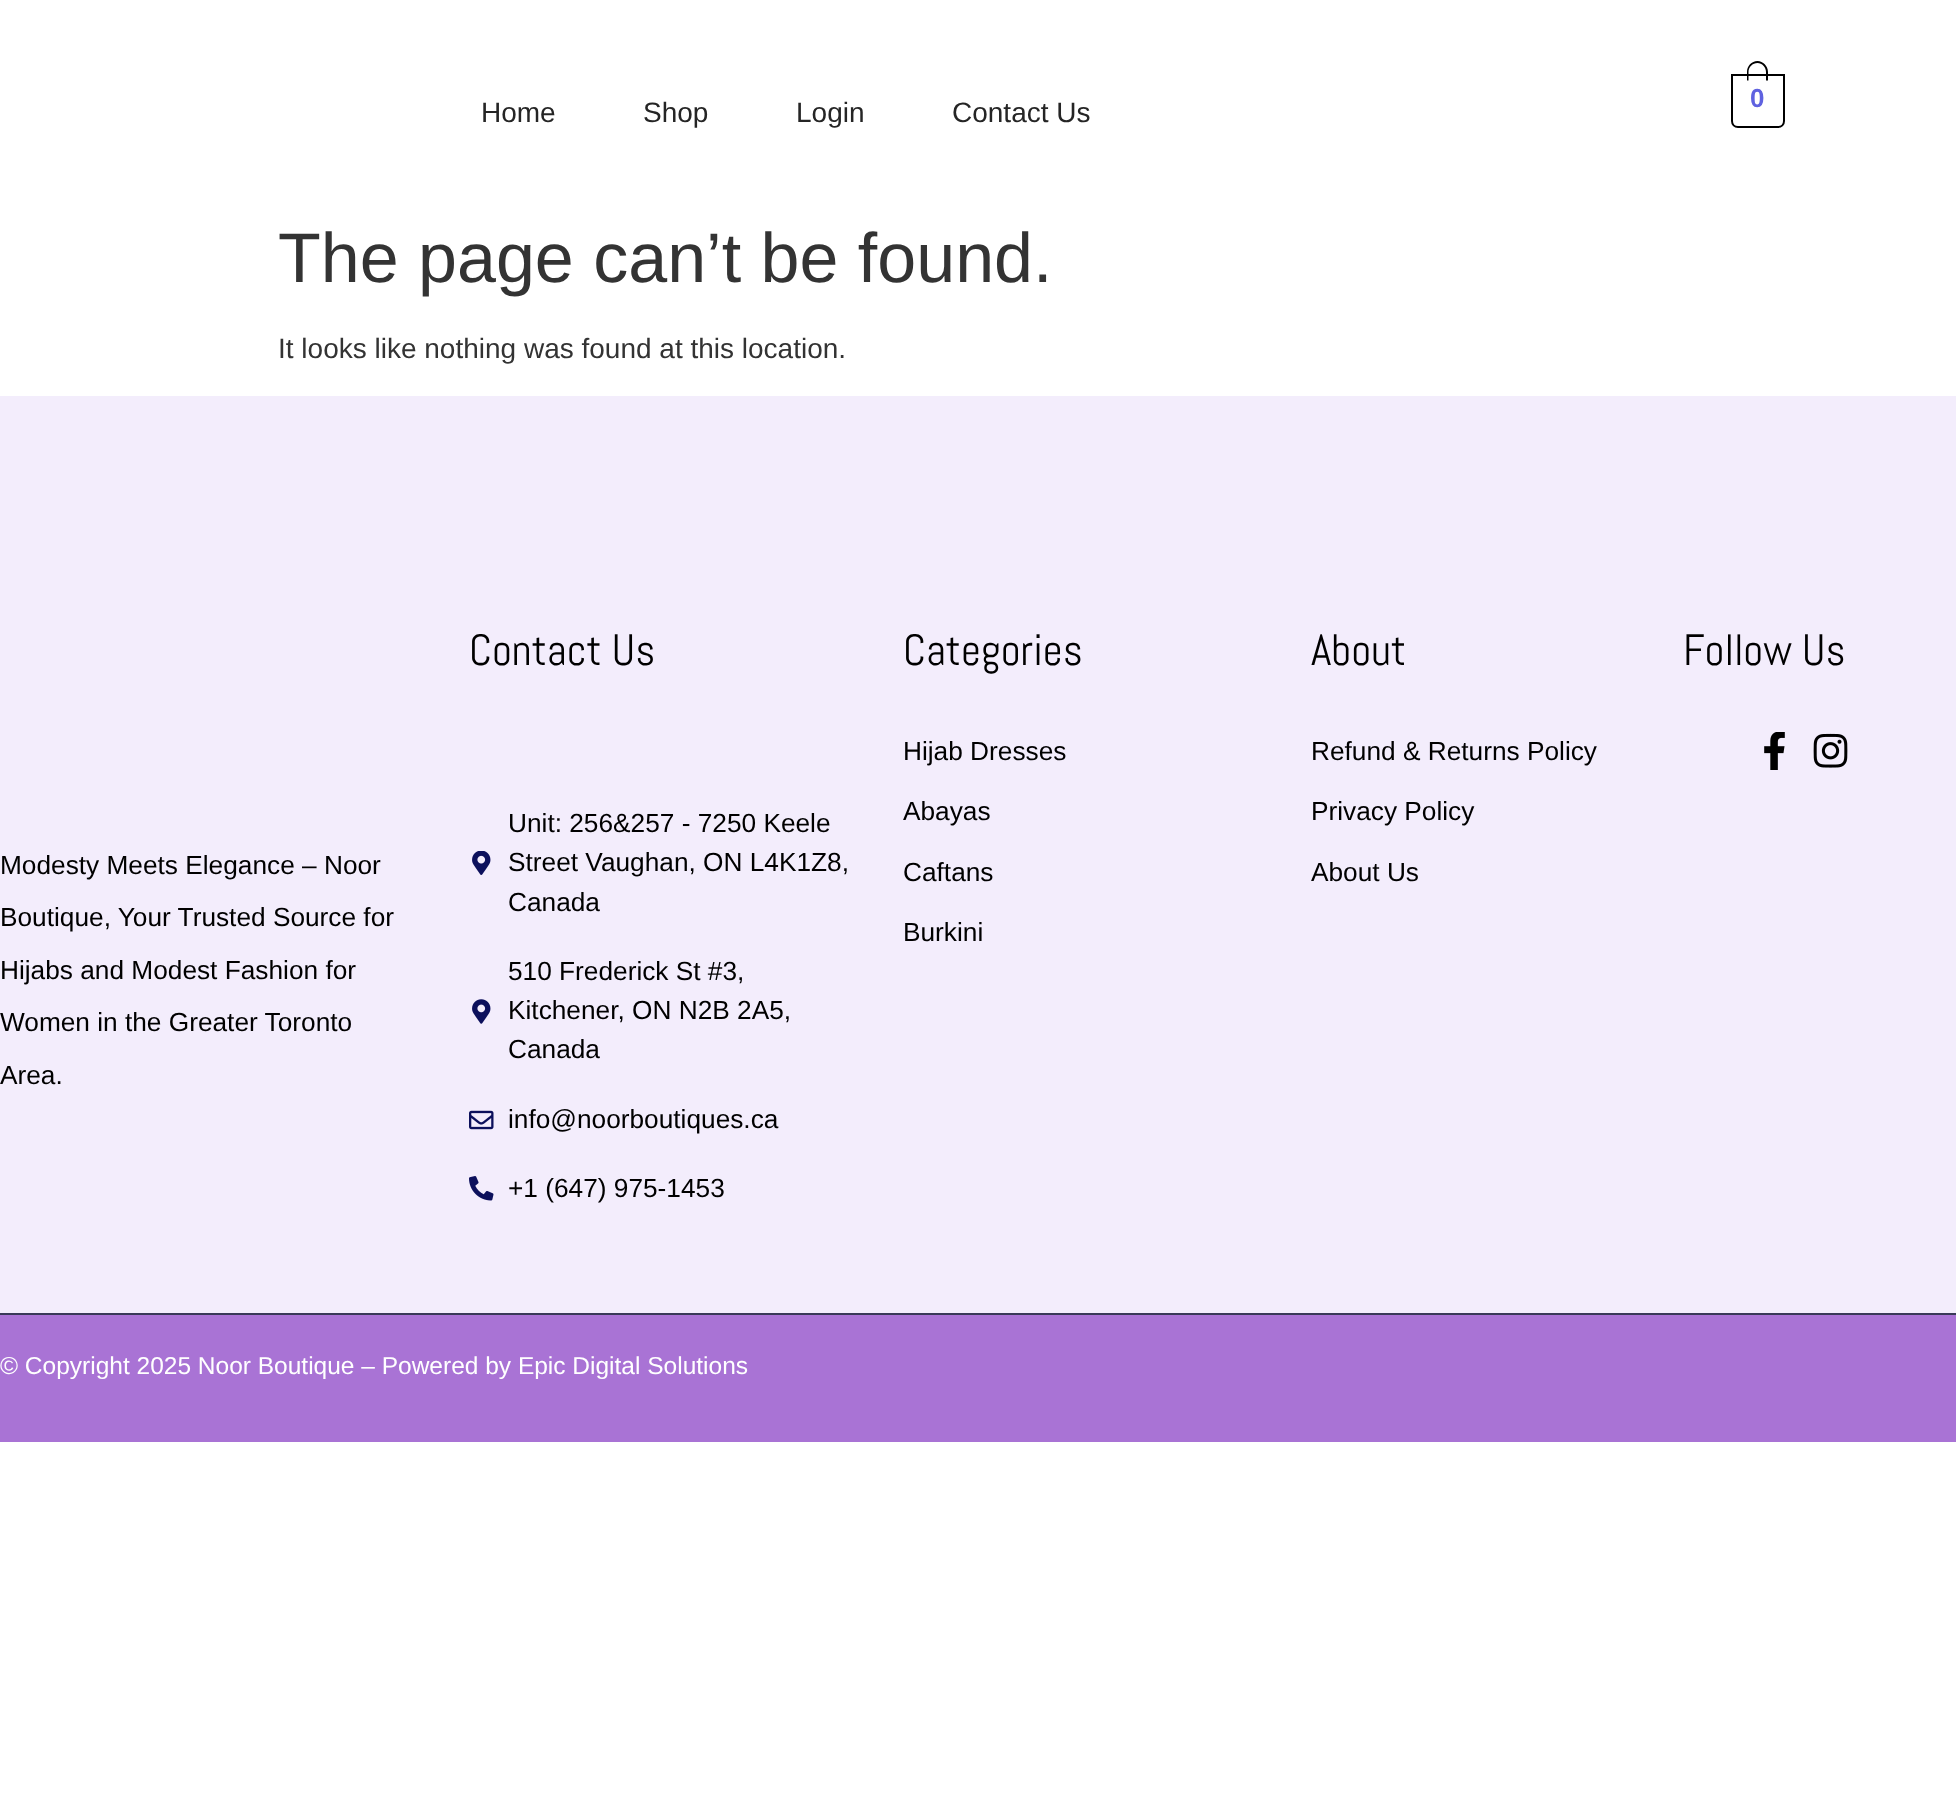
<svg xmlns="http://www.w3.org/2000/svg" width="1956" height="1797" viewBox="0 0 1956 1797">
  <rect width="100%" height="100%" fill="rgb(255,255,255)"/>
  <path d="M1732 75H1784V121C1784 124.5 1781.5 127 1778 127H1738C1734.5 127 1732 124.5 1732 121Z" fill="none" stroke="rgb(0,0,0)" stroke-width="2"/>
  <path d="M1757.5 61C1763 61 1768 66 1768 72V80.5H1747V72C1747 66 1751.5 61 1757.5 61ZM1757.5 63C1762 63 1766 67 1766 72V80.5H1748.5V72C1748.5 67 1752.5 63 1757.5 63Z" fill="rgb(0,0,0)" fill-rule="evenodd"/>
  <text x="1750" y="107" font-family="Liberation Sans" font-size="26" font-weight="bold" fill="rgb(95,98,224)">0</text>
  <g font-family="Liberation Sans" font-size="28" fill="rgb(37,37,37)">
    <text x="481" y="122">Home</text>
    <text x="643" y="122">Shop</text>
    <text x="796" y="122">Login</text>
    <text x="952" y="122">Contact Us</text>
  </g>
  <text x="278" y="282" font-family="Liberation Sans" font-size="70" fill="rgb(51,51,51)">The page can’t be found.</text>
  <text x="278" y="358" font-family="Liberation Sans" font-size="28" fill="rgb(51,51,51)">It looks like nothing was found at this location.</text>
  <rect x="0" y="396" width="1956" height="917" fill="rgb(243,237,252)"/>
  <text x="469" y="665" font-family="Abel" font-size="43.75" fill="rgb(0,0,0)">Contact Us</text>
  <image x="472" y="851" width="19" height="24" href="pic1.png"/>
  <g font-family="Liberation Sans" font-size="26.25" fill="rgb(0,0,0)">
    <text>
      <tspan x="508" y="832">Unit: 256&amp;257 - 7250 Keele</tspan>
      <tspan x="508" y="871">Street Vaughan, ON L4K1Z8,</tspan>
      <tspan x="508" y="911">Canada</tspan>
    </text>
  </g>
  <image x="472" y="999" width="19" height="25" href="pic2.png"/>
  <g font-family="Liberation Sans" font-size="26.25" fill="rgb(0,0,0)">
    <text>
      <tspan x="508" y="980">510 Frederick St #3,</tspan>
      <tspan x="508" y="1019">Kitchener, ON N2B 2A5,</tspan>
      <tspan x="508" y="1058">Canada</tspan>
    </text>
  </g>
  <image x="469" y="1110" width="25" height="20" href="pic3.png"/>
  <text x="508" y="1128" font-family="Liberation Sans" font-size="26.25" fill="rgb(0,0,0)">info@noorboutiques.ca</text>
  <image x="469" y="1176" width="25" height="25" href="pic4.png"/>
  <text x="508" y="1197" font-family="Liberation Sans" font-size="26.25" fill="rgb(0,0,0)">+1 (647) 975-1453</text>
  <text x="903" y="665" font-family="Abel" font-size="43.75" fill="rgb(0,0,0)">Categories</text>
  <g font-family="Liberation Sans" font-size="26.25" fill="rgb(0,0,0)">
    <text x="903" y="760">Hijab Dresses</text>
    <text x="903" y="820">Abayas</text>
    <text x="903" y="881">Caftans</text>
    <text x="903" y="941">Burkini</text>
  </g>
  <text x="1311" y="665" font-family="Abel" font-size="43.75" fill="rgb(0,0,0)">About</text>
  <g font-family="Liberation Sans" font-size="26.25" fill="rgb(0,0,0)">
    <text x="1311" y="760">Refund &amp; Returns Policy</text>
    <text x="1311" y="820">Privacy Policy</text>
    <text x="1311" y="881">About Us</text>
  </g>
  <text x="1683" y="665" font-family="Abel" font-size="43.75" fill="rgb(0,0,0)">Follow Us</text>
  <image x="1764" y="732" width="21" height="38" href="pic5.png"/>
  <image x="1813" y="733" width="35" height="35" href="pic6.png"/>
  <g font-family="Liberation Sans" font-size="26.25" fill="rgb(0,0,0)">
    <text>
      <tspan x="0" y="874">Modesty Meets Elegance – Noor</tspan>
      <tspan x="0" y="926">Boutique, Your Trusted Source for</tspan>
    </text>
    <text>
      <tspan x="0" y="979">Hijabs and Modest Fashion for</tspan>
      <tspan x="0" y="1031">Women in the Greater Toronto</tspan>
    </text>
    <text x="0" y="1084">Area.</text>
  </g>
  <rect x="0" y="1315" width="1956" height="127" fill="rgb(169,115,213)"/>
  <rect x="0" y="1313" width="1956" height="2" fill="rgb(57,57,88)"/>
  <text x="0" y="1374" font-family="Liberation Sans" font-size="24.5" fill="rgb(255,255,255)">© Copyright 2025 Noor Boutique – Powered by Epic Digital Solutions</text>
</svg>
